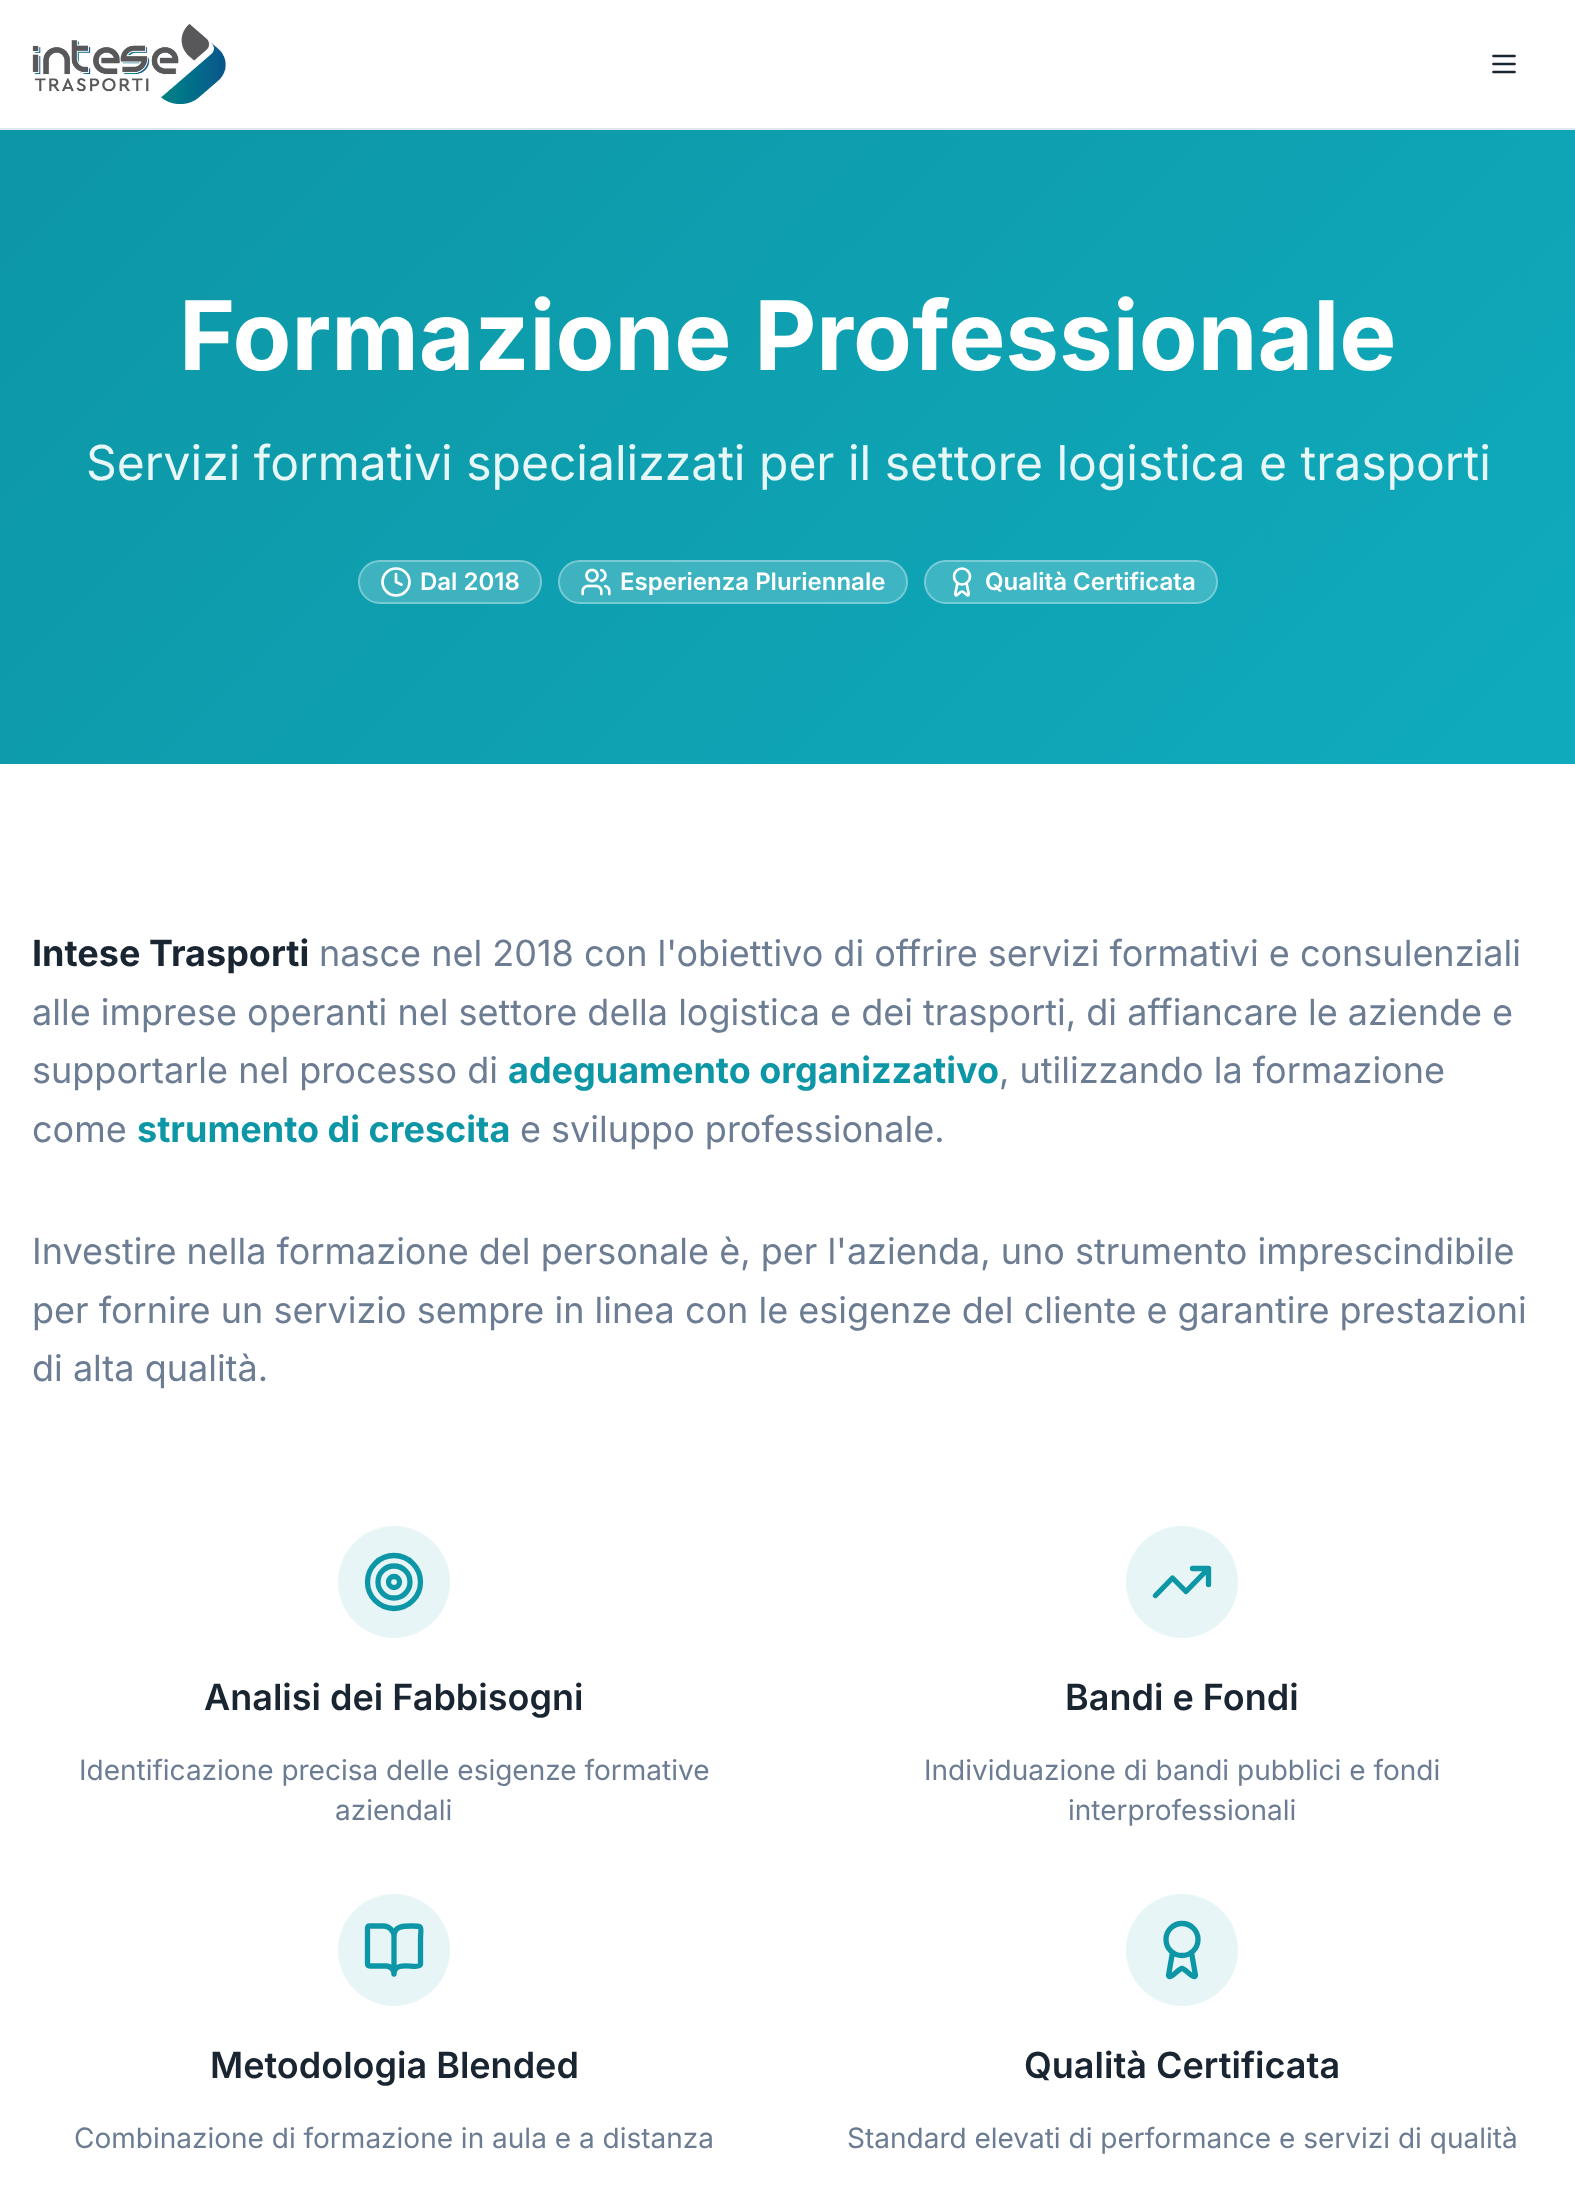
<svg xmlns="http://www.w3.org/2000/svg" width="1575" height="2206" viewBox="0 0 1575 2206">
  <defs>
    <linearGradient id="g1" gradientUnits="userSpaceOnUse" x1="235" y1="-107" x2="1341" y2="999"><stop offset="0" stop-color="rgb(13,150,165)"/><stop offset="1" stop-color="rgb(15,171,189)"/></linearGradient>
  </defs>
  <rect width="100%" height="100%" fill="rgb(255,255,255)"/>
  <rect x="0" y="128" width="1575" height="2" fill="rgb(225,231,239)"/>
  <image x="32" y="24" width="194" height="80" href="pic1.png"/>
  <path d="M1493.5 64H1514.5M1493.5 56H1514.5M1493.5 72H1514.5" fill="none" stroke="rgb(26,37,50)" stroke-width="2.7" stroke-linecap="round" stroke-linejoin="round"/>
  <rect x="0" y="130" width="1575" height="634" fill="url(#g1)"/>
  <text x="179" y="370" font-family="Inter" font-size="96" font-weight="bold" fill="rgb(255,255,255)">Formazione Professionale</text>
  <text x="86" y="480" font-family="Inter" font-size="48" fill="rgb(231,246,247)">Servizi formativi specializzati per il settore logistica e trasporti</text>
  <rect x="358" y="560" width="184" height="44" rx="22" fill="rgb(62,178,191)"/>
  <rect x="359" y="561" width="182" height="42" rx="21" fill="none" stroke="rgba(255,255,255,0.3)" stroke-width="2"/>
  <circle cx="396" cy="582" r="13.5" fill="none" stroke="rgb(255,255,255)" stroke-width="2.7"/>
  <path d="M396 574V582L401.5 584.5" fill="none" stroke="rgb(255,255,255)" stroke-width="2.7" stroke-linecap="round" stroke-linejoin="round"/>
  <text x="420" y="590" font-family="Inter" font-size="24" font-weight="600" fill="rgb(255,255,255)">Dal 2018</text>
  <rect x="558" y="560" width="350" height="44" rx="22" fill="rgba(255,255,255,0.2)"/>
  <rect x="559" y="561" width="348" height="42" rx="21" fill="none" stroke="rgba(255,255,255,0.3)" stroke-width="2"/>
  <image x="581" y="568" width="30" height="28" href="pic2.png"/>
  <text x="620" y="590" font-family="Inter" font-size="24" font-weight="600" fill="rgb(255,255,255)">Esperienza Pluriennale</text>
  <rect x="924" y="560" width="294" height="44" rx="22" fill="rgba(255,255,255,0.2)"/>
  <rect x="925" y="561" width="292" height="42" rx="21" fill="none" stroke="rgba(255,255,255,0.3)" stroke-width="2"/>
  <path d="M966.5 583L968.5 592.5C969.5 599.5 964.5 591.5 962 591.5C959.5 591.5 954.5 599.5 955.5 592.5L957.5 583" fill="none" stroke="rgb(255,255,255)" stroke-width="2.7" stroke-linecap="round" stroke-linejoin="round"/>
  <circle cx="962" cy="576.5" r="8" fill="none" stroke="rgb(255,255,255)" stroke-width="2.7"/>
  <text x="985" y="590" font-family="Inter" font-size="24" font-weight="600" fill="rgb(255,255,255)">Qualità Certificata</text>
  <text x="32" y="966" font-family="Inter" font-size="36" font-weight="bold" fill="rgb(26,37,50)">Intese Trasporti</text>
  <g font-family="Inter" font-size="36" fill="rgb(108,125,147)">
    <text x="319" y="966">nasce nel 2018 con l'obiettivo di offrire servizi formativi e consulenziali</text>
    <text>
      <tspan x="32" y="1025">alle imprese operanti nel settore della logistica e dei trasporti, di affiancare le aziende e</tspan>
      <tspan x="32" y="1083">supportarle nel processo di</tspan>
    </text>
  </g>
  <text x="508" y="1083" font-family="Inter" font-size="36" font-weight="bold" fill="rgb(13,150,165)">adeguamento organizzativo</text>
  <g font-family="Inter" font-size="36" fill="rgb(108,125,147)">
    <text x="999" y="1083">, utilizzando la formazione</text>
    <text x="32" y="1142">come</text>
  </g>
  <text x="137" y="1142" font-family="Inter" font-size="36" font-weight="bold" fill="rgb(13,150,165)">strumento di crescita</text>
  <g font-family="Inter" font-size="36" fill="rgb(108,125,147)">
    <text x="520" y="1142">e sviluppo professionale.</text>
    <text>
      <tspan x="32" y="1264">Investire nella formazione del personale è, per l'azienda, uno strumento imprescindibile</tspan>
      <tspan x="32" y="1323">per fornire un servizio sempre in linea con le esigenze del cliente e garantire prestazioni</tspan>
      <tspan x="32" y="1381">di alta qualità.</tspan>
    </text>
  </g>
  <circle cx="394" cy="1582" r="56" fill="rgb(231,245,246)"/>
  <circle cx="394" cy="1582" r="26.5" fill="none" stroke="rgb(13,150,165)" stroke-width="5.3"/>
  <circle cx="394" cy="1582" r="16" fill="none" stroke="rgb(13,150,165)" stroke-width="5.3"/>
  <circle cx="394" cy="1582" r="5.5" fill="none" stroke="rgb(13,150,165)" stroke-width="5.3"/>
  <text x="204" y="1710" font-family="Inter" font-size="36" font-weight="600" fill="rgb(26,37,50)">Analisi dei Fabbisogni</text>
  <g font-family="Inter" font-size="28" fill="rgb(108,125,147)">
    <text x="79" y="1780">Identificazione precisa delle esigenze formative</text>
    <text x="335" y="1820">aziendali</text>
  </g>
  <circle cx="1182" cy="1582" r="56" fill="rgb(231,245,246)"/>
  <path d="M1208.5 1568.5L1186 1591.5L1172.5 1578L1155.5 1595.5M1192.5 1568.5H1208.5V1584.5" fill="none" stroke="rgb(13,150,165)" stroke-width="5.3" stroke-linecap="round" stroke-linejoin="round"/>
  <text x="1065" y="1710" font-family="Inter" font-size="36" font-weight="600" fill="rgb(26,37,50)">Bandi e Fondi</text>
  <g font-family="Inter" font-size="28" fill="rgb(108,125,147)">
    <text x="924" y="1780">Individuazione di bandi pubblici e fondi</text>
    <text x="1068" y="1820">interprofessionali</text>
  </g>
  <circle cx="394" cy="1950" r="56" fill="rgb(231,245,246)"/>
  <path d="M394 1936.5V1974M370 1966C368.5 1966 367.5 1965 367.5 1963.5V1928.5C367.5 1927 368.5 1926 370 1926H383.5C389 1926 394 1931 394 1936.5C394 1926 403.5 1926 411.5 1926C424 1926 420.5 1926 420.5 1940V1964.5C418 1970 394 1959.5 394 1974C394 1969.5 390.5 1966 386 1966Z" fill="none" stroke="rgb(13,150,165)" stroke-width="5.3" stroke-linecap="round" stroke-linejoin="round"/>
  <text x="210" y="2078" font-family="Inter" font-size="36" font-weight="600" fill="rgb(26,37,50)">Metodologia Blended</text>
  <text x="74" y="2148" font-family="Inter" font-size="28" fill="rgb(108,125,147)">Combinazione di formazione in aula e a distanza</text>
  <circle cx="1182" cy="1950" r="56" fill="rgb(231,245,246)"/>
  <path d="M1191.5 1952.5L1195.5 1975.5C1194.5 1980.5 1185.5 1968.5 1182 1968.5C1178.5 1968.5 1169.5 1980.5 1168.5 1975.5L1172.5 1952.5" fill="none" stroke="rgb(13,150,165)" stroke-width="5.3" stroke-linecap="round" stroke-linejoin="round"/>
  <circle cx="1182" cy="1939.5" r="16" fill="none" stroke="rgb(13,150,165)" stroke-width="5.3"/>
  <text x="1024" y="2078" font-family="Inter" font-size="36" font-weight="600" fill="rgb(26,37,50)">Qualità Certificata</text>
  <text x="847" y="2148" font-family="Inter" font-size="28" fill="rgb(108,125,147)">Standard elevati di performance e servizi di qualità</text>
</svg>
